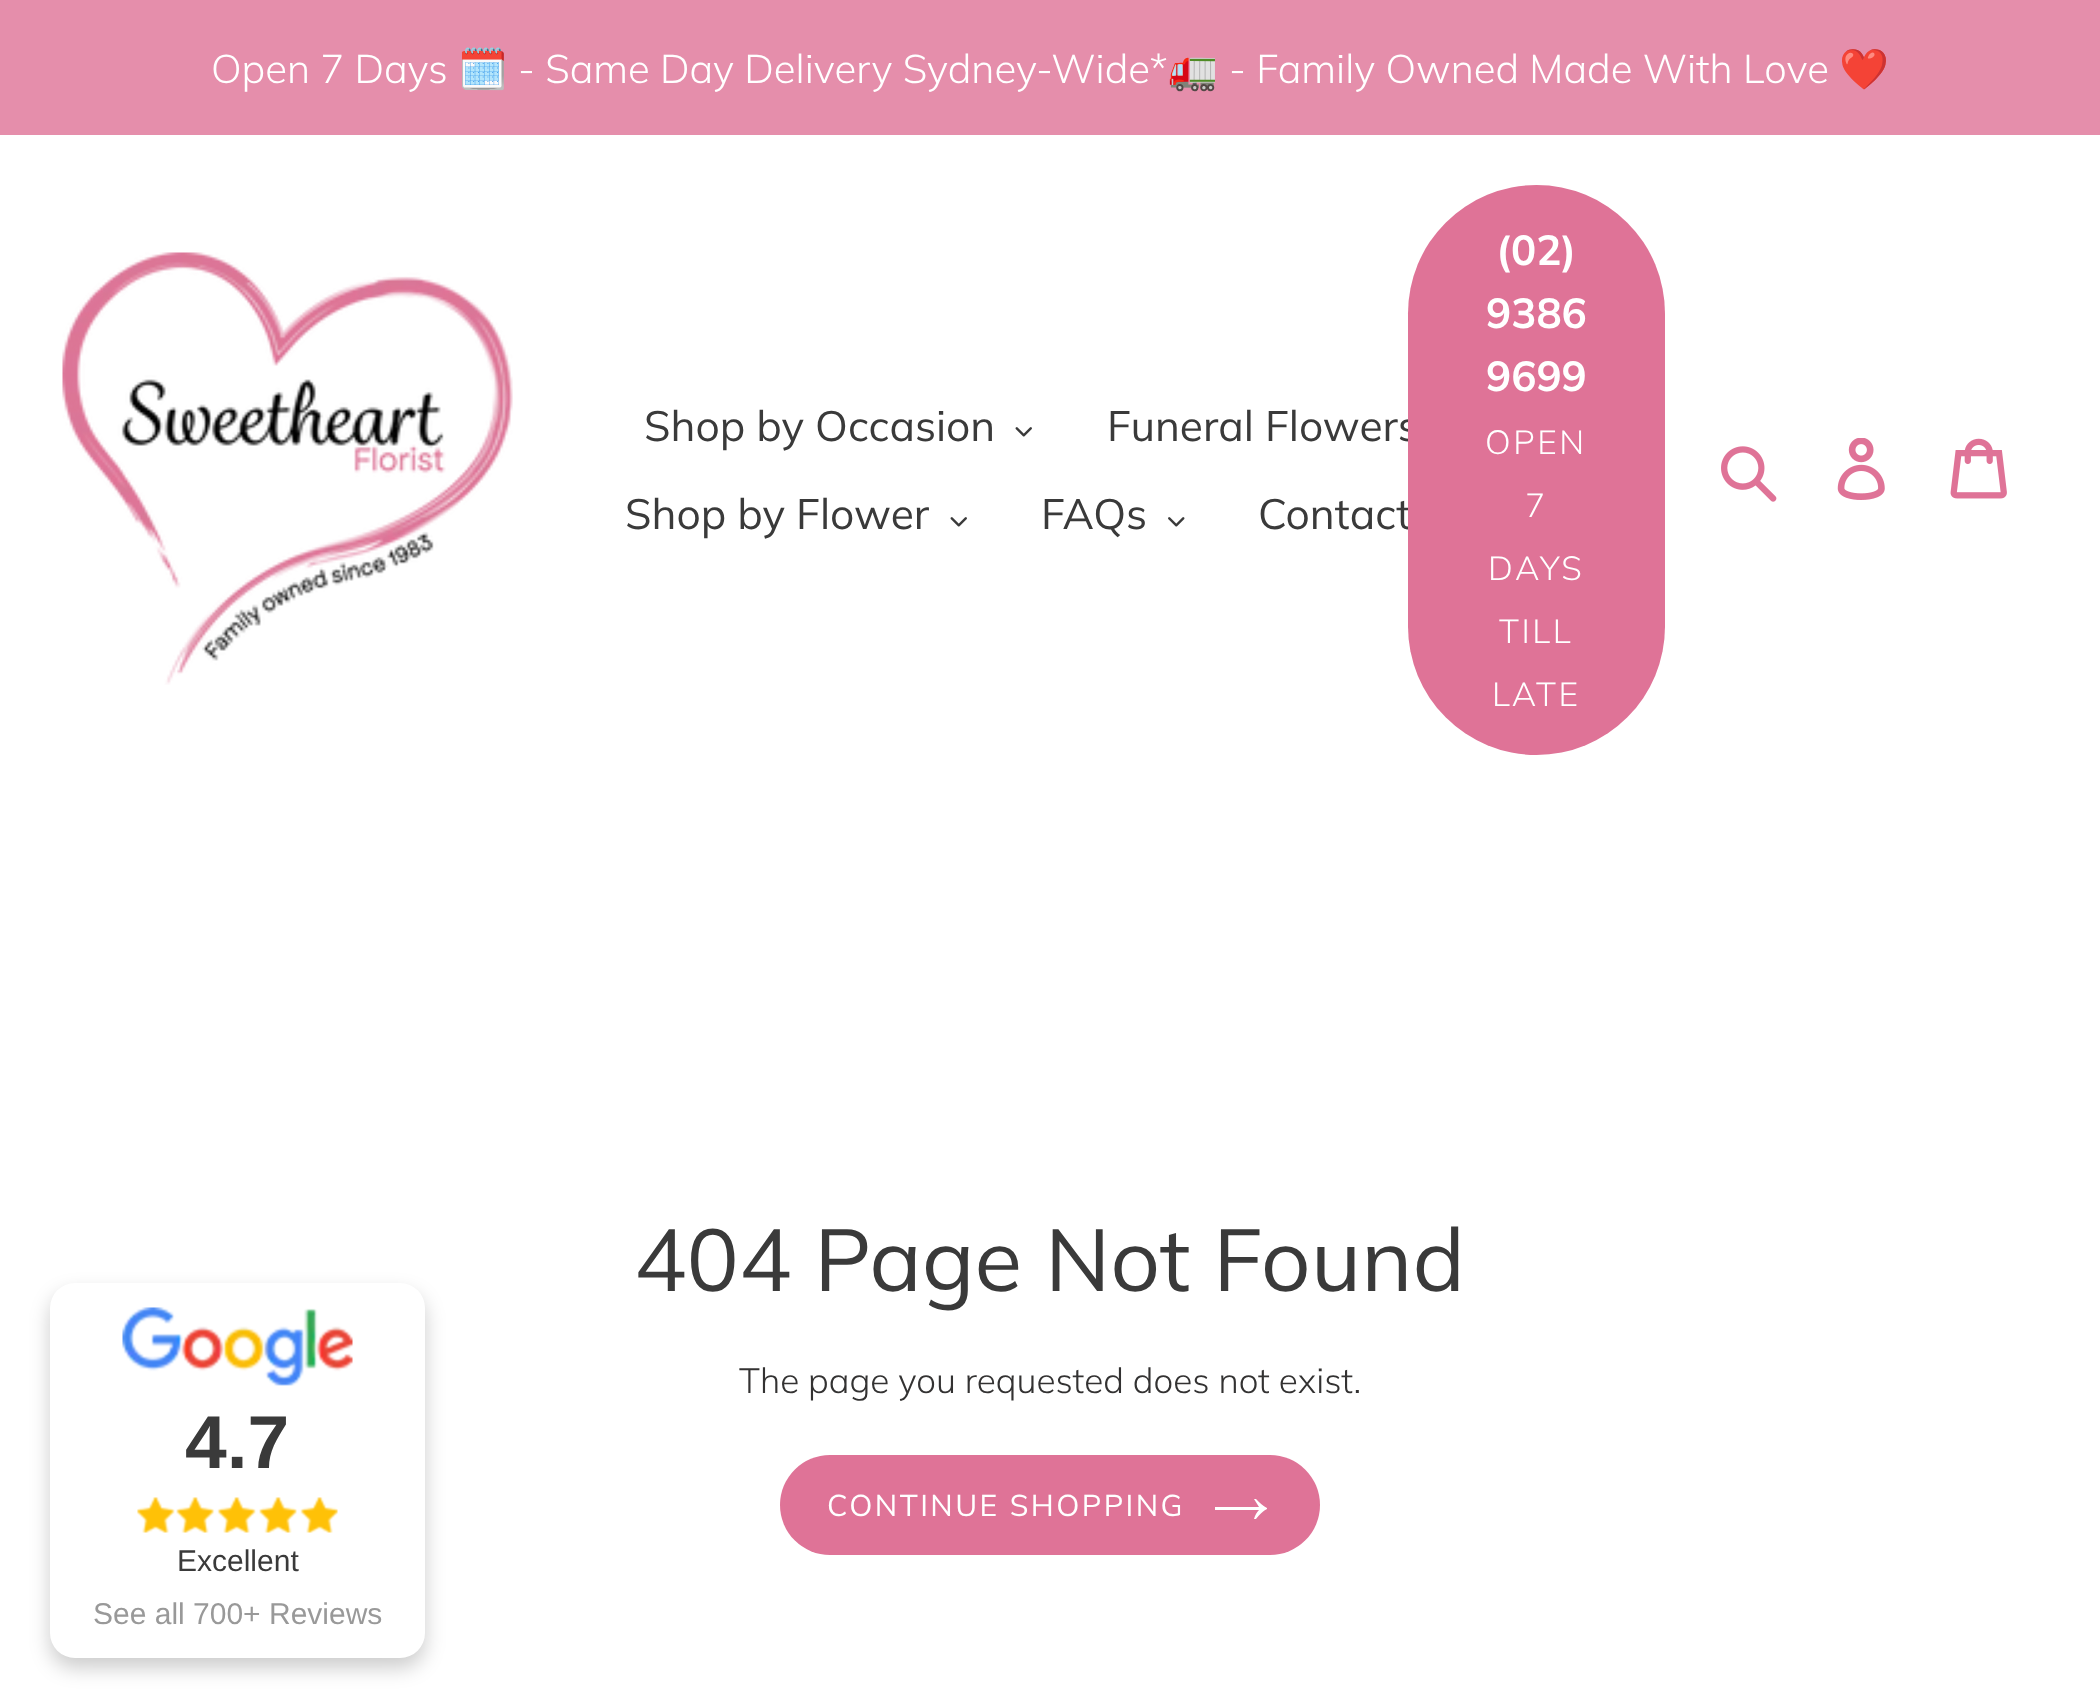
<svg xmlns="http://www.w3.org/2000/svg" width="2100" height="1707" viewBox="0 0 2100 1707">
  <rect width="100%" height="100%" fill="rgb(255,255,255)"/>
  <rect x="0" y="0" width="2100" height="135" fill="rgb(229,142,171)"/>
  <text x="211" y="83" font-family="Muli" font-size="40" font-weight="300" fill="rgb(255,255,255)">Open 7 Days</text>
  <text x="458" y="83" font-family="Noto Color Emoji" font-size="40" fill="rgb(255,255,255)">🗓</text>
  <text x="518" y="83" font-family="Muli" font-size="40" font-weight="300" fill="rgb(255,255,255)">- Same Day Delivery Sydney-Wide*</text>
  <text x="1168" y="83" font-family="Noto Color Emoji" font-size="40" fill="rgb(255,255,255)">🚛</text>
  <text x="1229" y="83" font-family="Muli" font-size="40" font-weight="300" fill="rgb(255,255,255)">- Family Owned Made With Love</text>
  <text x="1839" y="83" font-family="Noto Color Emoji" font-size="40" fill="rgb(255,255,255)">❤️</text>
  <image x="62" y="252" width="451" height="433" href="pic1.png"/>
  <text x="644" y="441" font-family="Muli" font-size="42.5" fill="rgb(58,58,58)">Shop by Occasion</text>
  <image x="1015" y="427" width="17" height="10" href="pic2.png"/>
  <g font-family="Muli" font-size="42.5" fill="rgb(58,58,58)">
    <text x="1107" y="441">Funeral Flowers</text>
    <text x="625" y="529">Shop by Flower</text>
  </g>
  <image x="950" y="517" width="17" height="10" href="pic2.png"/>
  <text x="1041" y="529" font-family="Muli" font-size="42.5" fill="rgb(58,58,58)">FAQs</text>
  <image x="1168" y="517" width="17" height="10" href="pic3.png"/>
  <text x="1258" y="529" font-family="Muli" font-size="42.5" fill="rgb(58,58,58)">Contact</text>
  <rect x="1408" y="185" width="257" height="570" rx="128.5" fill="rgb(223,115,151)"/>
  <g font-family="Muli" font-size="42" font-weight="bold" fill="rgb(255,255,255)">
    <text x="1496" y="265">(02)</text>
    <text>
      <tspan x="1486" y="328">9386</tspan>
      <tspan x="1486" y="391">9699</tspan>
    </text>
  </g>
  <g font-family="Muli" font-size="33.5" font-weight="300" letter-spacing="2.5" fill="rgb(255,255,255)">
    <text x="1485" y="454">OPEN</text>
    <text x="1525" y="517">7</text>
    <text x="1488" y="580">DAYS</text>
    <text x="1499" y="643">TILL</text>
    <text x="1492" y="706">LATE</text>
  </g>
  <image x="1721" y="446" width="56" height="56" href="pic4.png"/>
  <image x="1837" y="438" width="48" height="62" href="pic5.png"/>
  <image x="1950" y="438" width="57" height="61" href="pic6.png"/>
  <rect x="50" y="1293" width="375" height="375" rx="25" fill="rgba(0,0,0,0.2)" filter="blur(10px)"/>
  <rect x="50" y="1283" width="375" height="375" rx="25" fill="rgb(255,255,255)"/>
  <image x="122" y="1307" width="231" height="79" href="pic7.png"/>
  <text x="185" y="1468" font-family="Liberation Sans" font-size="75" font-weight="bold" fill="rgb(58,58,58)">4.7</text>
  <image x="137" y="1497" width="201" height="36" href="pic8.png"/>
  <text x="177" y="1571" font-family="Liberation Sans" font-size="30" fill="rgb(58,58,58)">Excellent</text>
  <text x="93" y="1624" font-family="Liberation Sans" font-size="30" fill="rgb(153,153,153)">See all 700+ Reviews</text>
  <text x="634" y="1291" font-family="Muli" font-size="87.5" fill="rgb(58,58,58)">404 Page Not Found</text>
  <text x="739" y="1393" font-family="Muli" font-size="35" font-weight="300" fill="rgb(51,50,50)">The page you requested does not exist.</text>
  <rect x="780" y="1455" width="540" height="100" rx="50" fill="rgb(223,115,151)"/>
  <text x="827" y="1516" font-family="Muli" font-size="30" letter-spacing="2.4" fill="rgb(255,255,255)">CONTINUE SHOPPING</text>
  <path d="M1256 1499C1259 1502 1263 1506 1267 1508V1509C1263 1511 1259 1515 1256 1519H1254C1255 1515 1257 1512 1259 1510H1215V1507H1259L1254 1499Z" fill="rgb(255,255,255)" fill-rule="evenodd"/>
</svg>
